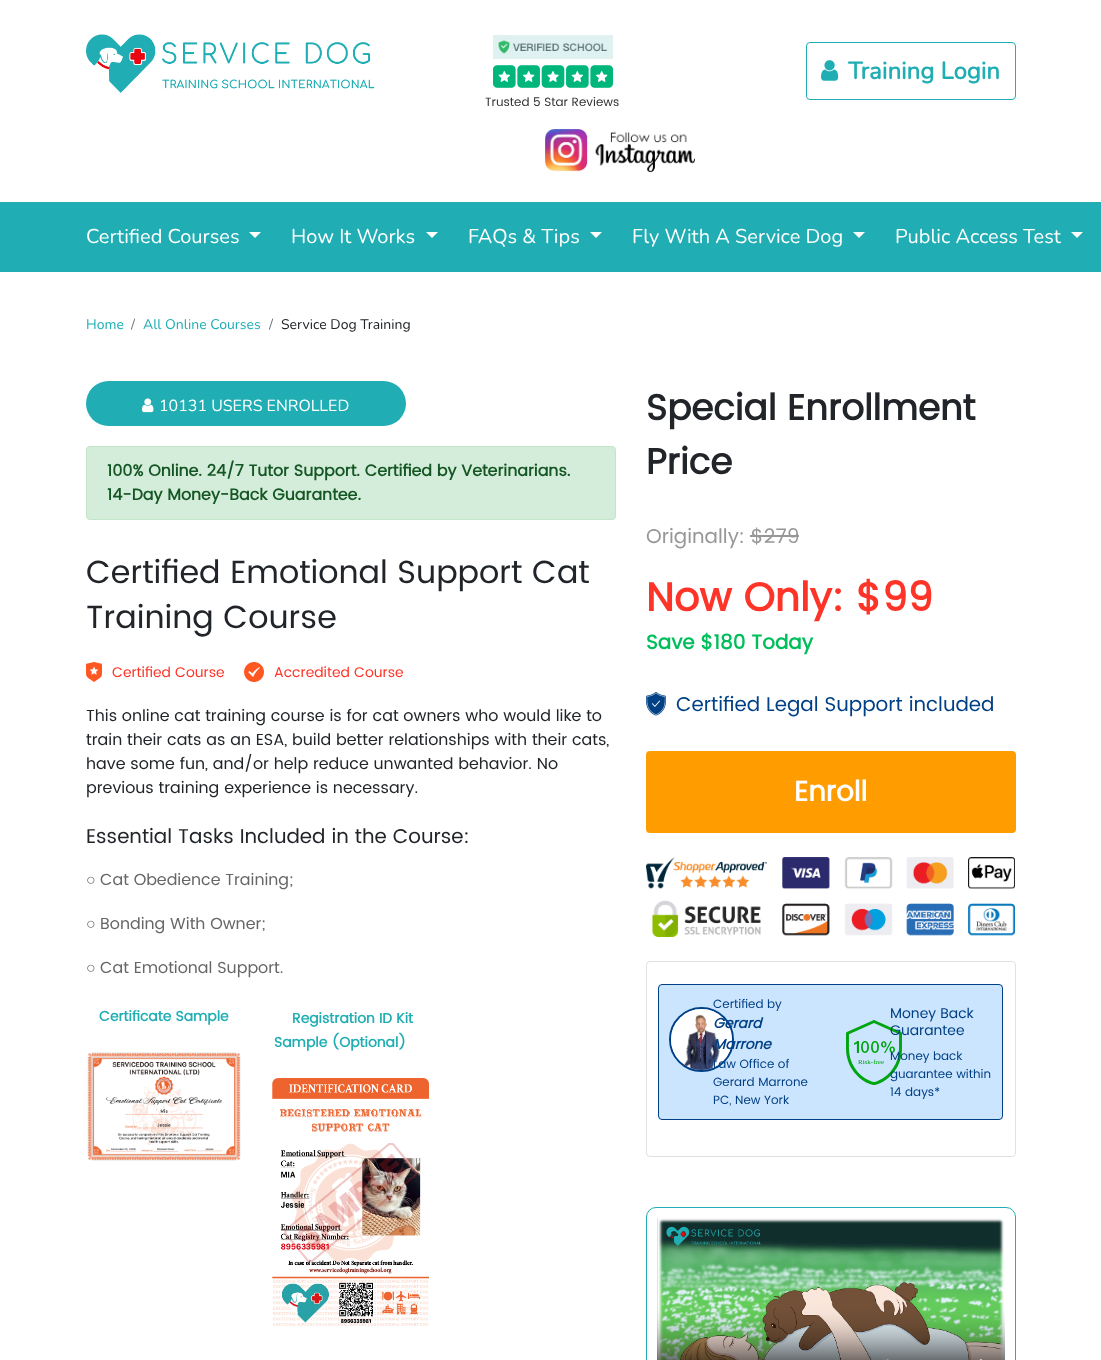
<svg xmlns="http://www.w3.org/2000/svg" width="1101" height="1360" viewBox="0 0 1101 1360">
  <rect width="100%" height="100%" fill="rgb(255,255,255)"/>
  <image x="86" y="34" width="289" height="59" href="pic1.png"/>
  <rect x="806.5" y="42.5" width="209" height="57" rx="3.5" fill="none" stroke="rgb(32,174,180)"/>
  <image x="821" y="60" width="18" height="21" href="pic2.png"/>
  <text x="848" y="79" font-family="Nunito" font-size="24" font-weight="bold" fill="rgb(32,174,180)">Training Login</text>
  <image x="493" y="35" width="120" height="24" href="pic3.png"/>
  <image x="493" y="65" width="120" height="23" href="pic4.png"/>
  <text x="485" y="106" font-family="Poppins" font-size="12" fill="rgb(51,51,51)">Trusted 5 Star Reviews</text>
  <image x="545" y="129" width="150" height="43" href="pic5.png"/>
  <rect x="0" y="202" width="1101" height="70" fill="rgb(32,174,180)"/>
  <text x="86" y="243" font-family="Nunito" font-size="20" fill="rgb(255,255,255)">Certified Courses</text>
  <path d="M249 232H261L255 238Z" fill="rgb(255,255,255)"/>
  <text x="291" y="243" font-family="Nunito" font-size="20" fill="rgb(255,255,255)">How It Works</text>
  <path d="M426 232H438L432 238Z" fill="rgb(255,255,255)"/>
  <text x="468" y="243" font-family="Nunito" font-size="20" fill="rgb(255,255,255)">FAQs &amp; Tips</text>
  <path d="M590 232H602L596 238Z" fill="rgb(255,255,255)"/>
  <text x="632" y="243" font-family="Nunito" font-size="20" fill="rgb(255,255,255)">Fly With A Service Dog</text>
  <path d="M853 232H865L859 238Z" fill="rgb(255,255,255)"/>
  <text x="895" y="243" font-family="Nunito" font-size="20" fill="rgb(255,255,255)">Public Access Test</text>
  <path d="M1071 232H1083L1077 238Z" fill="rgb(255,255,255)"/>
  <text x="86" y="329" font-family="Nunito" font-size="14" fill="rgb(32,174,180)">Home</text>
  <text x="131" y="329" font-family="Nunito" font-size="14" fill="rgb(108,117,125)">/</text>
  <text x="143" y="329" font-family="Nunito" font-size="14" fill="rgb(32,174,180)">All Online Courses</text>
  <text x="269" y="329" font-family="Nunito" font-size="14" fill="rgb(108,117,125)">/</text>
  <text x="281" y="329" font-family="Nunito" font-size="14" fill="rgb(33,37,41)">Service Dog Training</text>
  <rect x="86" y="381" width="320" height="45" rx="22.5" fill="rgb(32,174,180)"/>
  <image x="142" y="398" width="12" height="15" href="pic6.png"/>
  <text x="159" y="411" font-family="Nunito" font-size="16" fill="rgb(255,255,255)">10131 USERS ENROLLED</text>
  <rect x="86.5" y="446.5" width="529" height="73" rx="3.5" fill="rgb(212,237,218)" stroke="rgb(195,230,203)"/>
  <g font-family="Poppins" font-size="16" font-weight="bold" fill="rgb(21,87,36)">
    <text>
      <tspan x="107" y="476">100% Online. 24/7 Tutor Support. Certified by Veterinarians.</tspan>
      <tspan x="107" y="500">14-Day Money-Back Guarantee.</tspan>
    </text>
  </g>
  <g font-family="Poppins" font-size="32" fill="rgb(33,37,41)">
    <text>
      <tspan x="86" y="583">Certified Emotional Support Cat</tspan>
      <tspan x="86" y="628">Training Course</tspan>
    </text>
  </g>
  <image x="86" y="662" width="16" height="20" href="pic7.png"/>
  <text x="112" y="677" font-family="Poppins" font-size="14" fill="rgb(253,52,39)">Certified Course</text>
  <image x="244" y="662" width="20" height="20" href="pic8.png"/>
  <text x="274" y="677" font-family="Poppins" font-size="14" fill="rgb(253,52,39)">Accredited Course</text>
  <g font-family="Poppins" font-size="16" fill="rgb(33,37,41)">
    <text>
      <tspan x="86" y="721">This online cat training course is for cat owners who would like to</tspan>
      <tspan x="86" y="745">train their cats as an ESA, build better relationships with their cats,</tspan>
      <tspan x="86" y="769">have some fun, and/or help reduce unwanted behavior. No</tspan>
      <tspan x="86" y="793">previous training experience is necessary.</tspan>
    </text>
  </g>
  <text x="86" y="843" font-family="Poppins" font-size="20" fill="rgb(33,37,41)">Essential Tasks Included in the Course:</text>
  <text x="86" y="885" font-family="Liberation Serif" font-size="16" fill="rgb(102,102,102)">○</text>
  <text x="100" y="885" font-family="Poppins" font-size="16" fill="rgb(102,102,102)">Cat Obedience Training;</text>
  <text x="86" y="929" font-family="Liberation Serif" font-size="16" fill="rgb(102,102,102)">○</text>
  <text x="100" y="929" font-family="Poppins" font-size="16" fill="rgb(102,102,102)">Bonding With Owner;</text>
  <text x="86" y="973" font-family="Liberation Serif" font-size="16" fill="rgb(102,102,102)">○</text>
  <text x="100" y="973" font-family="Poppins" font-size="16" fill="rgb(102,102,102)">Cat Emotional Support.</text>
  <text x="99" y="1021" font-family="Poppins" font-size="14" font-weight="bold" fill="rgb(32,174,180)">Certificate Sample</text>
  <image x="87" y="1052" width="154" height="109" href="pic9.png"/>
  <g font-family="Poppins" font-size="14" font-weight="bold" fill="rgb(32,174,180)">
    <text x="292" y="1023">Registration ID Kit</text>
    <text x="274" y="1047">Sample (Optional)</text>
  </g>
  <image x="272" y="1078" width="157" height="248" href="pic10.png"/>
  <g font-family="Poppins" font-size="36" font-weight="bold" fill="rgb(33,37,41)">
    <text>
      <tspan x="646" y="420">Special Enrollment</tspan>
      <tspan x="646" y="474">Price</tspan>
    </text>
  </g>
  <text x="646" y="543" font-family="Poppins" font-size="20" fill="rgb(151,151,151)">Originally: $279</text>
  <rect x="750" y="535" width="49" height="2" fill="rgb(151,151,151)"/>
  <text x="646" y="611" font-family="Poppins" font-size="40" font-weight="bold" fill="rgb(253,52,39)">Now Only: $99</text>
  <text x="646" y="649" font-family="Poppins" font-size="20" font-weight="bold" fill="rgb(0,190,91)">Save $180 Today</text>
  <image x="646" y="692" width="20" height="24" href="pic11.png"/>
  <text x="676" y="711" font-family="Poppins" font-size="20" fill="rgb(0,64,133)">Certified Legal Support included</text>
  <rect x="646" y="751" width="370" height="82" rx="4" fill="rgb(255,156,0)"/>
  <text x="794" y="801" font-family="Poppins" font-size="28" font-weight="bold" fill="rgb(255,255,255)">Enroll</text>
  <image x="646" y="857" width="369" height="80" href="pic12.png"/>
  <rect x="646.5" y="961.5" width="369" height="195" rx="3.5" fill="none" stroke="rgb(229,224,224)"/>
  <rect x="658.5" y="984.5" width="344" height="135" rx="3.5" fill="rgb(204,229,255)" stroke="rgb(0,64,133)"/>
  <circle cx="701.5" cy="1039.5" r="31.5" fill="none" stroke="rgb(0,64,133)" stroke-width="2"/>
  <image x="671" y="1009" width="61" height="61" href="pic13.png"/>
  <text x="713" y="1008" font-family="Poppins" font-size="12" fill="rgb(0,64,133)">Certified by</text>
  <g font-family="Poppins" font-size="14" font-weight="bold" font-style="italic" fill="rgb(0,64,133)">
    <text>
      <tspan x="713" y="1028">Gerard</tspan>
      <tspan x="713" y="1049">Marrone</tspan>
    </text>
  </g>
  <g font-family="Poppins" font-size="12" fill="rgb(0,64,133)">
    <text>
      <tspan x="713" y="1068">Law Office of</tspan>
      <tspan x="713" y="1086">Gerard Marrone</tspan>
      <tspan x="713" y="1104">PC, New York</tspan>
    </text>
  </g>
  <image x="846" y="1020" width="56" height="65" href="pic14.png"/>
  <g font-family="Poppins" font-size="14" fill="rgb(0,64,133)">
    <text>
      <tspan x="890" y="1018">Money Back</tspan>
      <tspan x="890" y="1035">Guarantee</tspan>
    </text>
  </g>
  <g font-family="Poppins" font-size="12" fill="rgb(0,64,133)">
    <text>
      <tspan x="890" y="1060">Money back</tspan>
      <tspan x="890" y="1078">guarantee within</tspan>
      <tspan x="890" y="1096">14 days*</tspan>
    </text>
  </g>
  <rect x="646.5" y="1207.5" width="369" height="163" rx="9.5" fill="none" stroke="rgb(32,174,180)"/>
  <image x="657" y="1218" width="348" height="142" href="pic15.png"/>
</svg>
